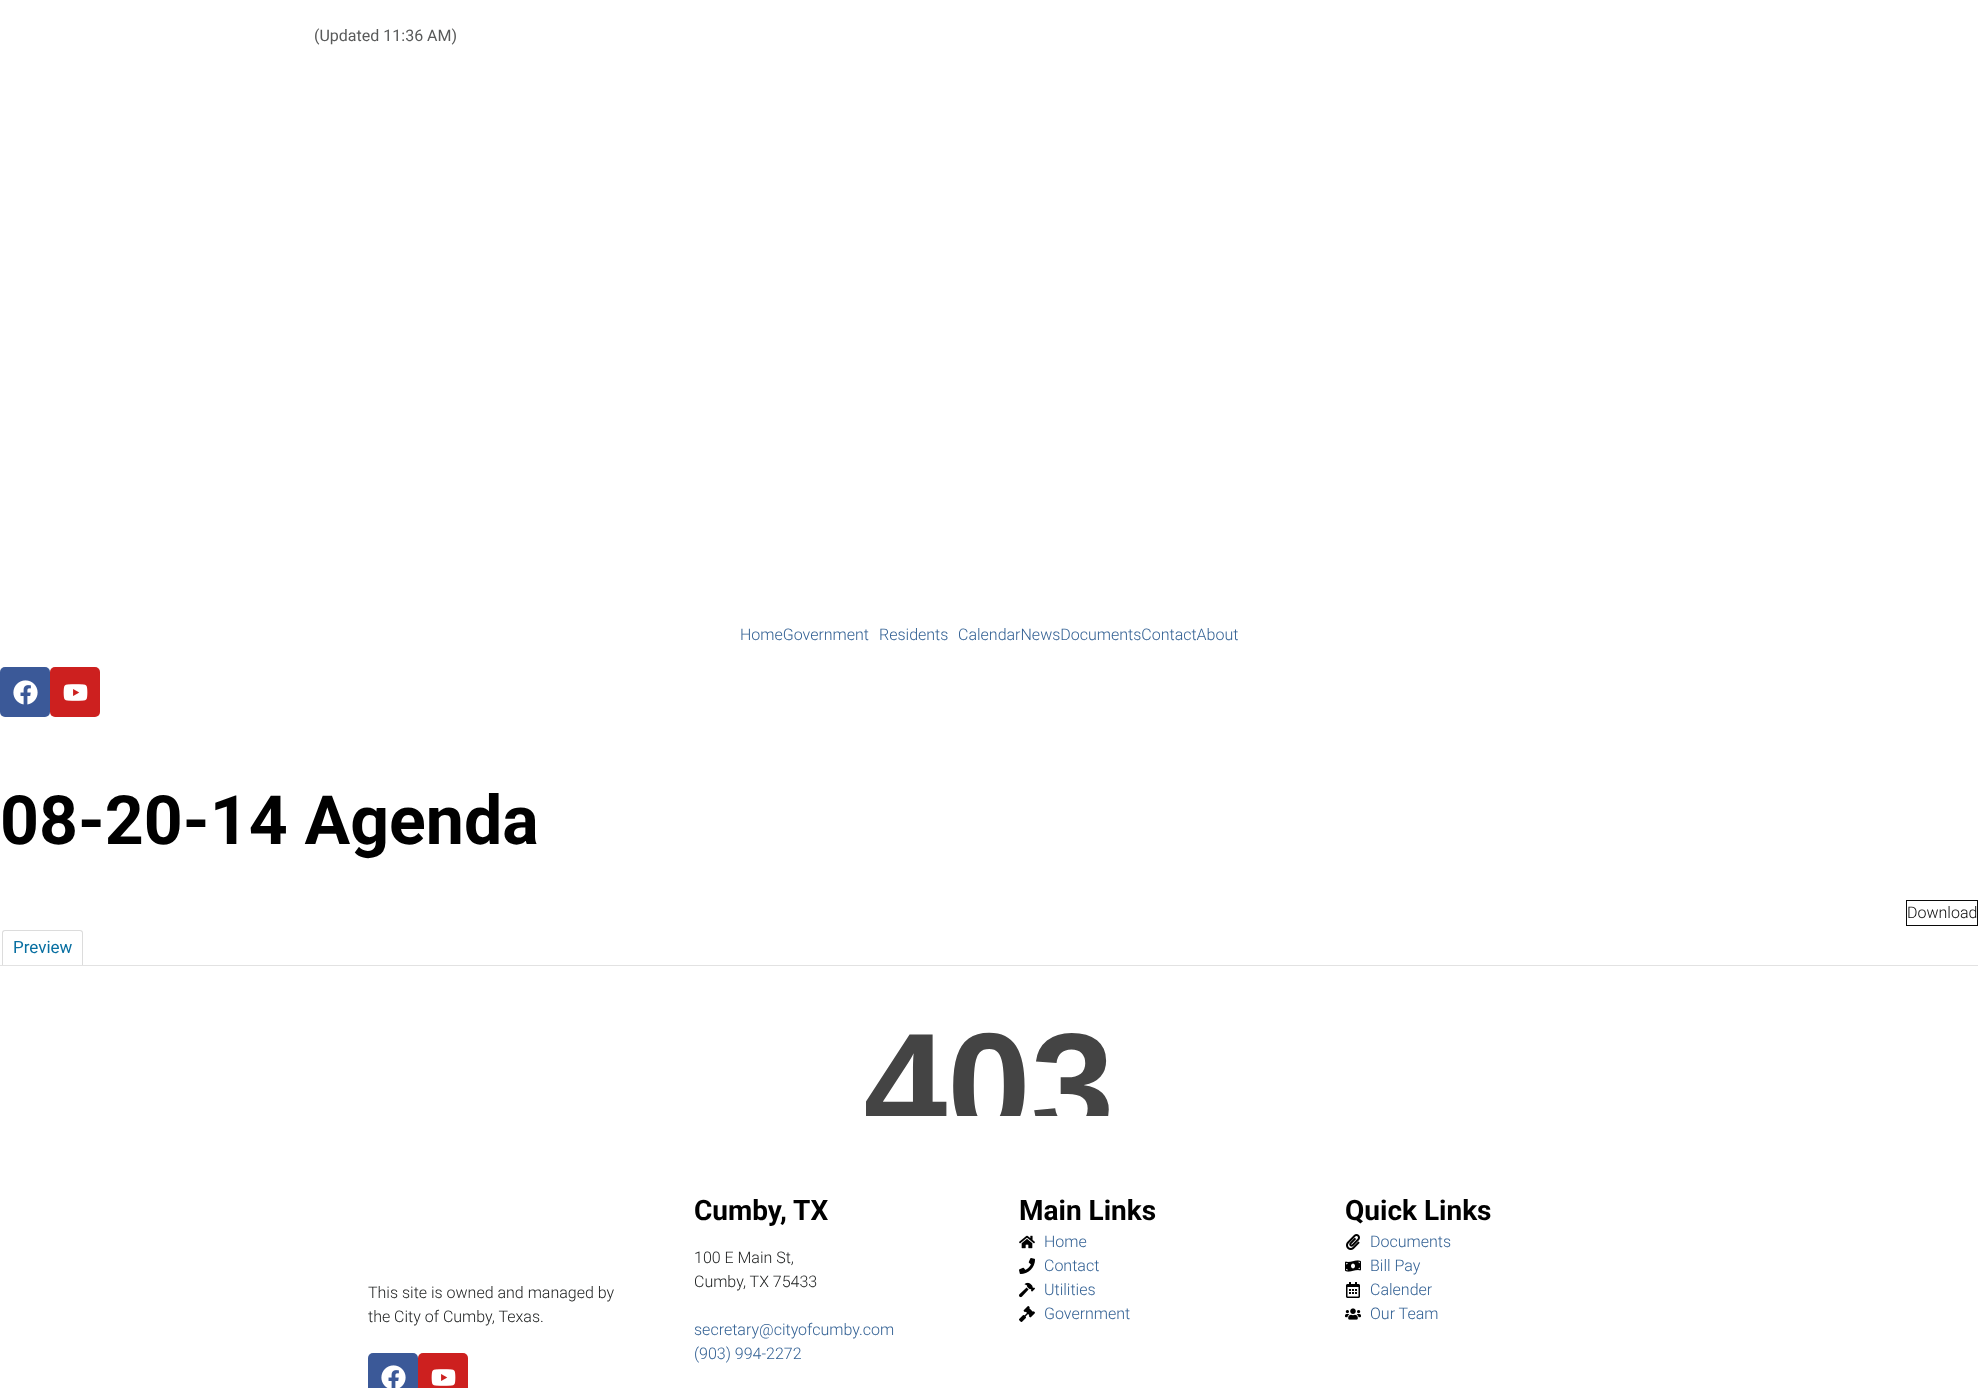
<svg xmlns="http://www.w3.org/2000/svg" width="1978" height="1388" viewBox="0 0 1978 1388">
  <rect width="100%" height="100%" fill="rgb(255,255,255)"/>
  <text x="314" y="41" font-family="Roboto" font-size="16" fill="rgb(89,90,90)">(Updated 11:36 AM)</text>
  <g font-family="Roboto" font-size="16" font-weight="300" fill="rgb(51,97,148)">
    <text x="740" y="640">HomeGovernment</text>
    <text x="879" y="640">Residents</text>
    <text x="958" y="640">CalendarNewsDocumentsContactAbout</text>
  </g>
  <rect x="0" y="667" width="50" height="50" rx="5" fill="rgb(59,89,152)"/>
  <image x="13" y="680" width="25" height="25" href="pic1.png"/>
  <rect x="50" y="667" width="50" height="50" rx="5" fill="rgb(205,32,31)"/>
  <image x="63" y="684" width="25" height="17" href="pic2.png"/>
  <text x="0" y="844" font-family="Roboto" font-size="68" font-weight="bold" fill="rgb(0,0,0)">08-20-14 Agenda</text>
  <rect x="1906.5" y="900.5" width="71" height="25" fill="none" stroke="rgb(10,10,10)"/>
  <text x="1907" y="918" font-family="Roboto" font-size="16" font-weight="300" fill="rgb(10,10,10)">Download</text>
  <path d="M5 930H80C82 930 83 931 83 933V965H2V933C2 931 3 930 5 930ZM5 931H80C81 931 82 932 82 933V965H3V933C3 932 4 931 5 931Z" fill="rgb(220,220,220)" fill-rule="evenodd"/>
  <text x="13" y="953" font-family="Roboto" font-size="17" fill="rgb(8,111,161)">Preview</text>
  <rect x="0" y="965" width="1978" height="1" fill="rgb(226,226,226)"/>
  <image x="866" y="1032" width="243" height="84" href="pic3.png"/>
  <g font-family="Roboto" font-size="16" font-weight="300" fill="rgb(33,35,35)">
    <text>
      <tspan x="368" y="1298">This site is owned and managed by</tspan>
      <tspan x="368" y="1322">the City of Cumby, Texas.</tspan>
    </text>
  </g>
  <rect x="368" y="1353" width="50" height="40" rx="5" fill="rgb(59,89,152)"/>
  <image x="381" y="1365" width="25" height="23" href="pic4.png"/>
  <rect x="418" y="1353" width="50" height="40" rx="5" fill="rgb(205,32,31)"/>
  <image x="431" y="1369" width="25" height="17" href="pic2.png"/>
  <text x="694" y="1220" font-family="Roboto" font-size="28" font-weight="bold" fill="rgb(0,0,0)">Cumby, TX</text>
  <g font-family="Roboto" font-size="16" font-weight="300" fill="rgb(33,35,35)">
    <text>
      <tspan x="694" y="1263">100 E Main St,</tspan>
      <tspan x="694" y="1287">Cumby, TX 75433</tspan>
    </text>
  </g>
  <g font-family="Roboto" font-size="16" font-weight="300" fill="rgb(51,97,148)">
    <text>
      <tspan x="694" y="1335">secretary@cityofcumby.com</tspan>
      <tspan x="694" y="1359">(903) 994-2272</tspan>
    </text>
  </g>
  <text x="1019" y="1220" font-family="Roboto" font-size="28" font-weight="bold" fill="rgb(0,0,0)">Main Links</text>
  <image x="1019" y="1235" width="16" height="14" href="pic5.png"/>
  <text x="1044" y="1247" font-family="Roboto" font-size="16" font-weight="300" fill="rgb(51,97,148)">Home</text>
  <image x="1019" y="1258" width="16" height="16" href="pic6.png"/>
  <text x="1044" y="1271" font-family="Roboto" font-size="16" font-weight="300" fill="rgb(51,97,148)">Contact</text>
  <image x="1019" y="1282" width="16" height="16" href="pic7.png"/>
  <text x="1044" y="1295" font-family="Roboto" font-size="16" font-weight="300" fill="rgb(51,97,148)">Utilities</text>
  <image x="1019" y="1306" width="16" height="16" href="pic8.png"/>
  <text x="1044" y="1319" font-family="Roboto" font-size="16" font-weight="300" fill="rgb(51,97,148)">Government</text>
  <text x="1345" y="1220" font-family="Roboto" font-size="28" font-weight="bold" fill="rgb(0,0,0)">Quick Links</text>
  <image x="1346" y="1234" width="14" height="16" href="pic9.png"/>
  <text x="1370" y="1247" font-family="Roboto" font-size="16" font-weight="300" fill="rgb(51,97,148)">Documents</text>
  <image x="1345" y="1260" width="16" height="12" href="pic10.png"/>
  <text x="1370" y="1271" font-family="Roboto" font-size="16" font-weight="300" fill="rgb(51,97,148)">Bill Pay</text>
  <image x="1346" y="1282" width="14" height="16" href="pic11.png"/>
  <text x="1370" y="1295" font-family="Roboto" font-size="16" font-weight="300" fill="rgb(51,97,148)">Calender</text>
  <image x="1345" y="1308" width="16" height="12" href="pic12.png"/>
  <text x="1370" y="1319" font-family="Roboto" font-size="16" font-weight="300" fill="rgb(51,97,148)">Our Team</text>
</svg>
